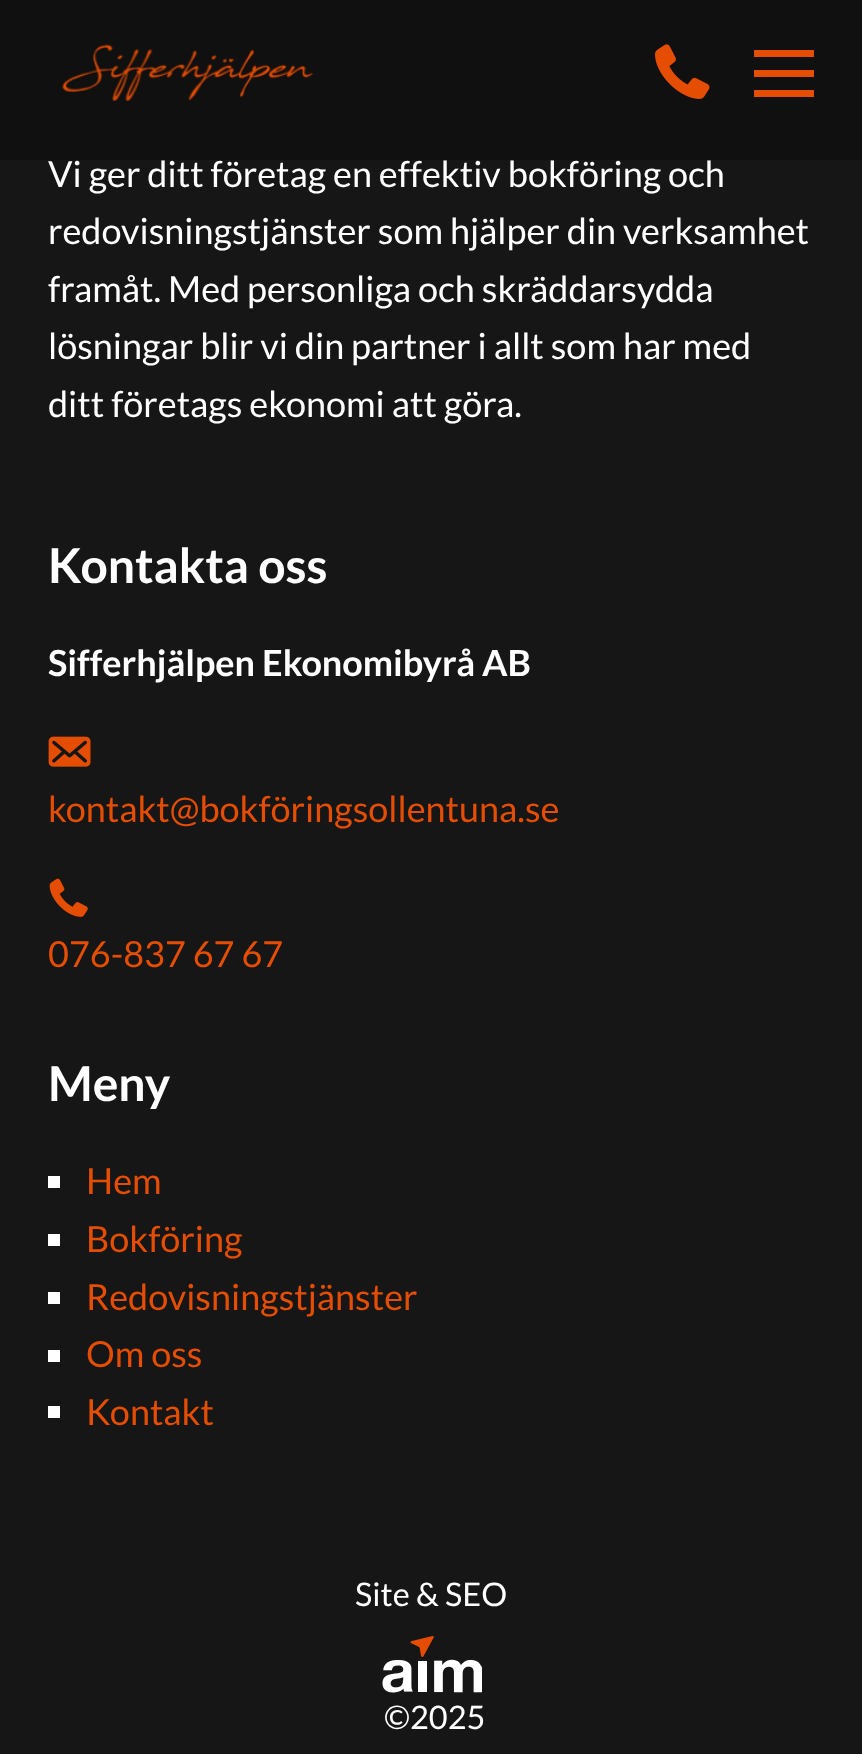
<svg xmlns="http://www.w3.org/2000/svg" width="862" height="1754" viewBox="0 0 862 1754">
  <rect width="100%" height="100%" fill="rgb(22,22,22)"/>
  <rect x="0" y="0" width="862" height="160" fill="rgb(16,16,16)"/>
  <image x="62" y="44" width="252" height="58" href="pic1.png"/>
  <image x="655" y="44" width="55" height="55" href="pic2.png"/>
  <rect x="754" y="50" width="60" height="7" fill="rgb(229,78,2)"/>
  <rect x="754" y="70" width="60" height="7" fill="rgb(229,78,2)"/>
  <rect x="754" y="90" width="60" height="7" fill="rgb(229,78,2)"/>
  <g font-family="Lato" font-size="36" fill="rgb(255,255,255)">
    <text>
      <tspan x="48" y="187">Vi ger ditt företag en effektiv bokföring och</tspan>
      <tspan x="48" y="244">redovisningstjänster som hjälper din verksamhet</tspan>
      <tspan x="48" y="302">framåt. Med personliga och skräddarsydda</tspan>
      <tspan x="48" y="359">lösningar blir vi din partner i allt som har med</tspan>
      <tspan x="48" y="417">ditt företags ekonomi att göra.</tspan>
    </text>
  </g>
  <text x="48" y="583" font-family="Lato" font-size="48" font-weight="bold" fill="rgb(255,255,255)">Kontakta oss</text>
  <text x="48" y="676" font-family="Lato" font-size="36" font-weight="bold" fill="rgb(255,255,255)">Sifferhjälpen Ekonomibyrå AB</text>
  <image x="48" y="736" width="43" height="31" href="pic3.png"/>
  <text x="48" y="822" font-family="Lato" font-size="36" fill="rgb(229,78,2)">kontakt@bokföringsollentuna.se</text>
  <image x="49" y="878" width="39" height="39" href="pic4.png"/>
  <text x="48" y="967" font-family="Lato" font-size="36" fill="rgb(229,78,2)">076-837 67 67</text>
  <text x="48" y="1101" font-family="Lato" font-size="48" font-weight="bold" fill="rgb(255,255,255)">Meny</text>
  <rect x="48" y="1176" width="12" height="12" fill="rgb(255,255,255)"/>
  <text x="86" y="1194" font-family="Lato" font-size="36" fill="rgb(229,78,2)">Hem</text>
  <rect x="48" y="1234" width="12" height="12" fill="rgb(255,255,255)"/>
  <text x="86" y="1252" font-family="Lato" font-size="36" fill="rgb(229,78,2)">Bokföring</text>
  <rect x="48" y="1292" width="12" height="12" fill="rgb(255,255,255)"/>
  <text x="86" y="1310" font-family="Lato" font-size="36" fill="rgb(229,78,2)">Redovisningstjänster</text>
  <rect x="48" y="1350" width="12" height="12" fill="rgb(255,255,255)"/>
  <text x="86" y="1367" font-family="Lato" font-size="36" fill="rgb(229,78,2)">Om oss</text>
  <rect x="48" y="1406" width="12" height="12" fill="rgb(255,255,255)"/>
  <text x="86" y="1425" font-family="Lato" font-size="36" fill="rgb(229,78,2)">Kontakt</text>
  <text x="355" y="1606" font-family="Lato" font-size="32.5" fill="rgb(255,255,255)">Site &amp; SEO</text>
  <image x="382" y="1636" width="100" height="57" href="pic5.png"/>
  <text x="384" y="1729" font-family="Lato" font-size="32.5" fill="rgb(255,255,255)">©2025</text>
</svg>
